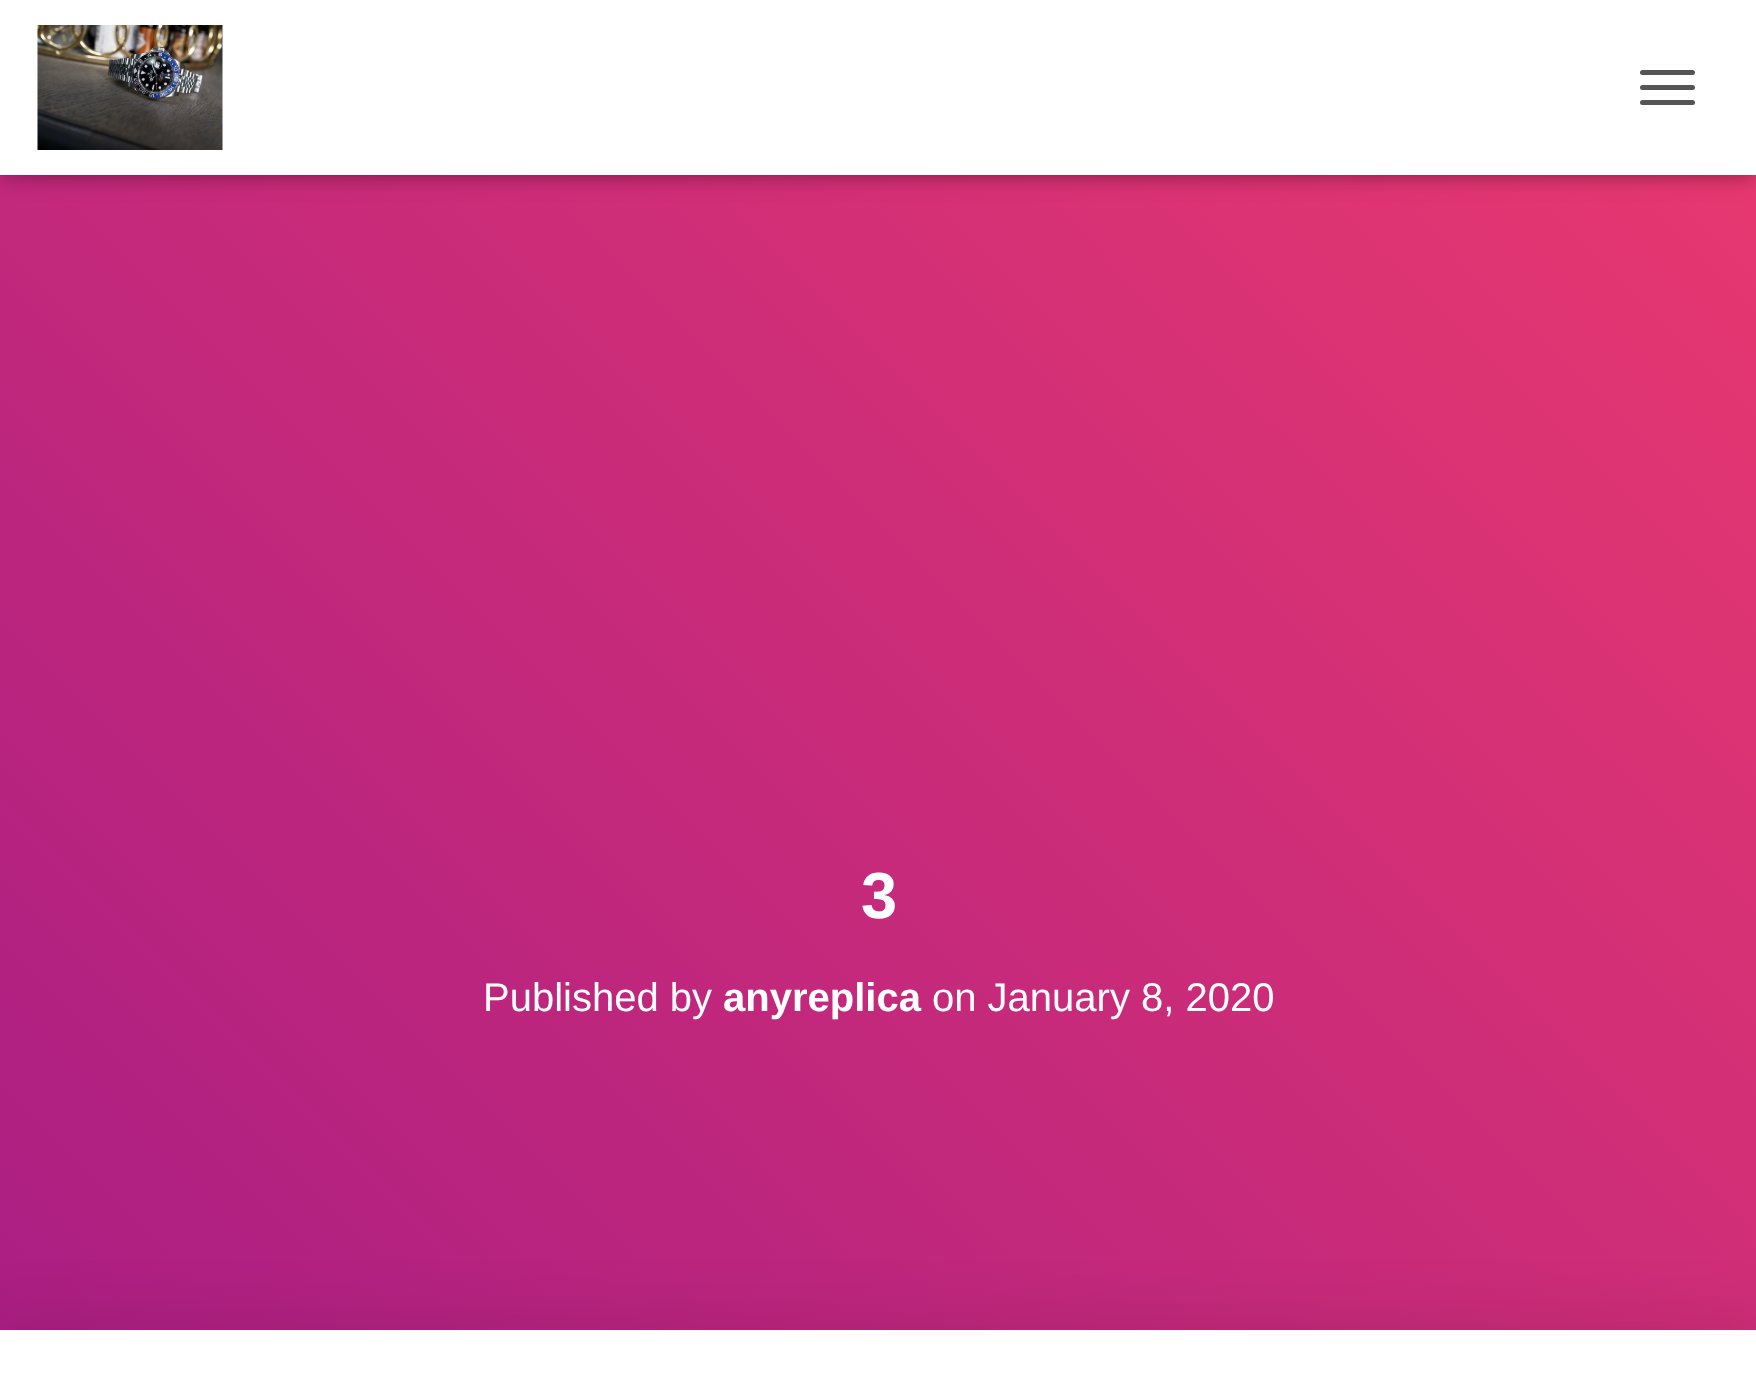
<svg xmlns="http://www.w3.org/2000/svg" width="1756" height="1376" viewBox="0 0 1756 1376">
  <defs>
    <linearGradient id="g1" gradientUnits="userSpaceOnUse" x1="69" y1="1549" x2="1688" y2="-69"><stop offset="0" stop-color="rgb(168,29,132)"/><stop offset="1" stop-color="rgb(234,57,111)"/></linearGradient>
  </defs>
  <rect width="100%" height="100%" fill="rgb(255,255,255)"/>
  <rect x="0" y="175" width="1756" height="1155" fill="url(#g1)"/>
  <rect x="5" y="15" width="1748" height="165" fill="rgba(0,0,0,0.1)" filter="blur(6px)"/>
  <rect x="0" y="3" width="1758" height="175" fill="rgba(0,0,0,0.12)" filter="blur(12.5px)"/>
  <rect x="15" y="18" width="1728" height="145" fill="rgba(0,0,0,0.42)" filter="blur(12.5px)"/>
  <rect x="0" y="0" width="1756" height="175" fill="rgb(255,255,255)"/>
  <image x="37" y="25" width="186" height="125" href="pic1.png"/>
  <rect x="1640" y="70" width="55" height="5" rx="2.5" fill="rgb(85,85,85)"/>
  <rect x="1640" y="85" width="55" height="5" rx="2.5" fill="rgb(85,85,85)"/>
  <rect x="1640" y="100" width="55" height="5" rx="2.5" fill="rgb(85,85,85)"/>
  <text x="861" y="918" font-family="Liberation Sans" font-size="65" font-weight="bold" fill="rgb(255,255,255)">3</text>
  <text x="483" y="1011" font-family="Liberation Sans" font-size="40" fill="rgb(255,255,255)">Published by</text>
  <text x="723" y="1011" font-family="Liberation Sans" font-size="40" font-weight="bold" fill="rgb(255,255,255)">anyreplica</text>
  <text x="932" y="1011" font-family="Liberation Sans" font-size="40" fill="rgb(255,255,255)">on January 8, 2020</text>
  <rect x="-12" y="1333" width="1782" height="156" fill="rgba(0,0,0,0.12)" filter="blur(37.5px)"/>
  <rect x="0" y="1330" width="1756" height="46" fill="rgb(255,255,255)"/>
</svg>
